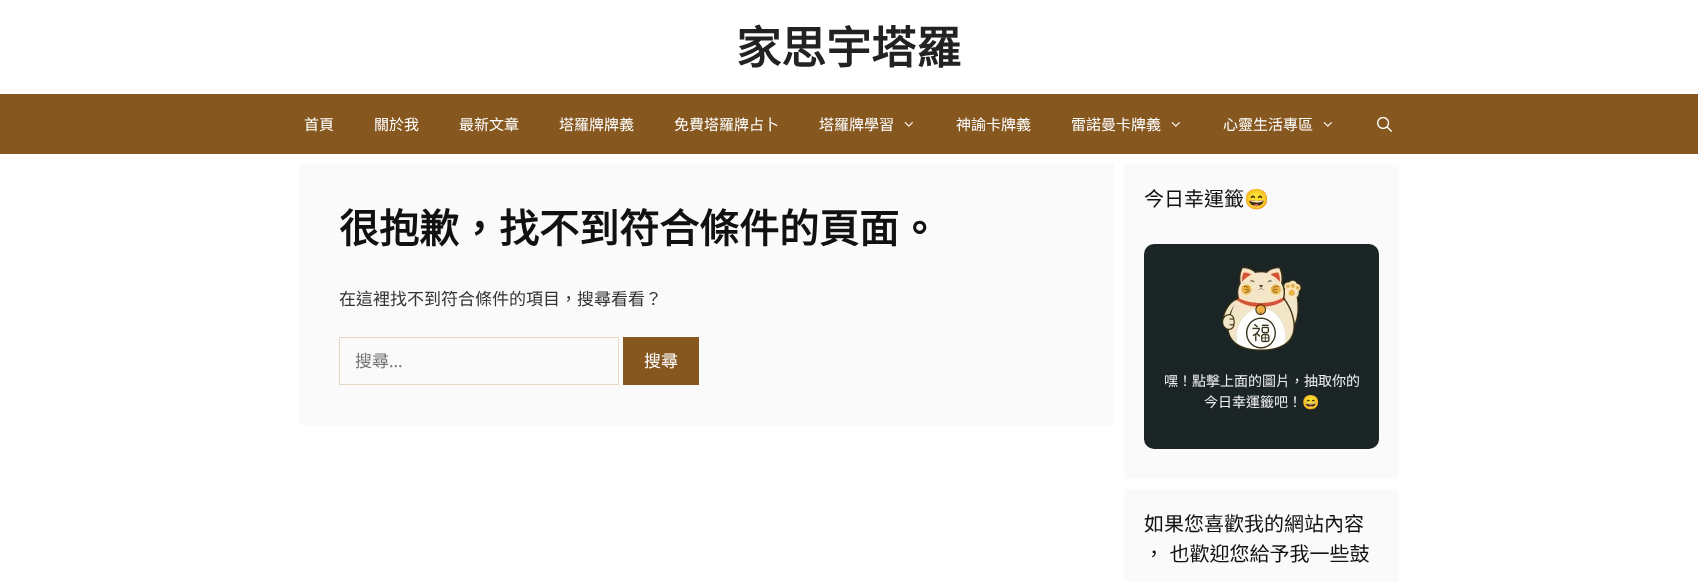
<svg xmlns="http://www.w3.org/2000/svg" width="1698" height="582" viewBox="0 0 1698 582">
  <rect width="100%" height="100%" fill="rgb(255,255,255)"/>
  <text x="736" y="64" font-family="Noto Sans CJK TC" font-size="45" font-weight="bold" fill="rgb(34,34,34)">家思宇塔羅</text>
  <rect x="0" y="94" width="1698" height="60" fill="rgb(135,87,32)"/>
  <g font-family="Noto Sans CJK TC" font-size="15" fill="rgb(255,255,255)">
    <text x="304" y="130">首頁</text>
    <text x="374" y="130">關於我</text>
    <text x="459" y="130">最新文章</text>
    <text x="559" y="130">塔羅牌牌義</text>
    <text x="674" y="130">免費塔羅牌占卜</text>
    <text x="819" y="130">塔羅牌學習</text>
  </g>
  <image x="904" y="122" width="9" height="5" href="pic1.png"/>
  <g font-family="Noto Sans CJK TC" font-size="15" fill="rgb(255,255,255)">
    <text x="956" y="130">神諭卡牌義</text>
    <text x="1071" y="130">雷諾曼卡牌義</text>
  </g>
  <image x="1171" y="122" width="9" height="5" href="pic1.png"/>
  <text x="1223" y="130" font-family="Noto Sans CJK TC" font-size="15" fill="rgb(255,255,255)">心靈生活專區</text>
  <image x="1323" y="122" width="9" height="5" href="pic1.png"/>
  <image x="1377" y="116" width="15" height="16" href="pic2.png"/>
  <rect x="299" y="164" width="815" height="261" fill="rgb(250,250,250)"/>
  <text x="339" y="243" font-family="Noto Sans CJK TC" font-size="40" font-weight="bold" fill="rgb(17,17,17)">很抱歉，找不到符合條件的頁面。</text>
  <text x="339" y="305" font-family="Noto Sans CJK TC" font-size="17" fill="rgb(51,51,51)">在這裡找不到符合條件的項目，搜尋看看？</text>
  <rect x="339.5" y="337.5" width="279" height="47" fill="none" stroke="rgb(228,215,200)"/>
  <text x="355" y="367" font-family="Noto Sans CJK TC" font-size="17" fill="rgb(117,117,117)">搜尋</text>
  <text x="389" y="367" font-family="Noto Sans" font-size="17" fill="rgb(117,117,117)">...</text>
  <rect x="623" y="337" width="76" height="48" fill="rgb(135,87,32)"/>
  <text x="644" y="367" font-family="Noto Sans CJK TC" font-size="17" fill="rgb(255,255,255)">搜尋</text>
  <rect x="1124" y="164" width="275" height="315" fill="rgb(250,250,250)"/>
  <text x="1144" y="206" font-family="Noto Sans CJK TC" font-size="20" fill="rgb(17,17,17)">今日幸運籤</text>
  <text x="1244" y="206" font-family="Noto Color Emoji" font-size="20" fill="rgb(17,17,17)">😄</text>
  <rect x="1144" y="244" width="235" height="205" rx="10" fill="rgb(28,37,38)"/>
  <image x="1222" y="267" width="80" height="84" href="pic3.png"/>
  <g font-family="Noto Sans CJK TC" font-size="14" fill="rgb(240,240,240)">
    <text x="1164" y="386">嘿！點擊上面的圖片，抽取你的</text>
    <text x="1204" y="407">今日幸運籤吧！</text>
  </g>
  <text x="1302" y="407" font-family="Noto Color Emoji" font-size="14" fill="rgb(240,240,240)">😄</text>
  <rect x="1124" y="489" width="275" height="93" fill="rgb(250,250,250)"/>
  <g font-family="Noto Sans CJK TC" font-size="20" fill="rgb(17,17,17)">
    <text>
      <tspan x="1144" y="531">如果您喜歡我的網站內容</tspan>
      <tspan x="1144" y="561" word-spacing="1">， 也歡迎您給予我一些鼓</tspan>
    </text>
  </g>
</svg>
